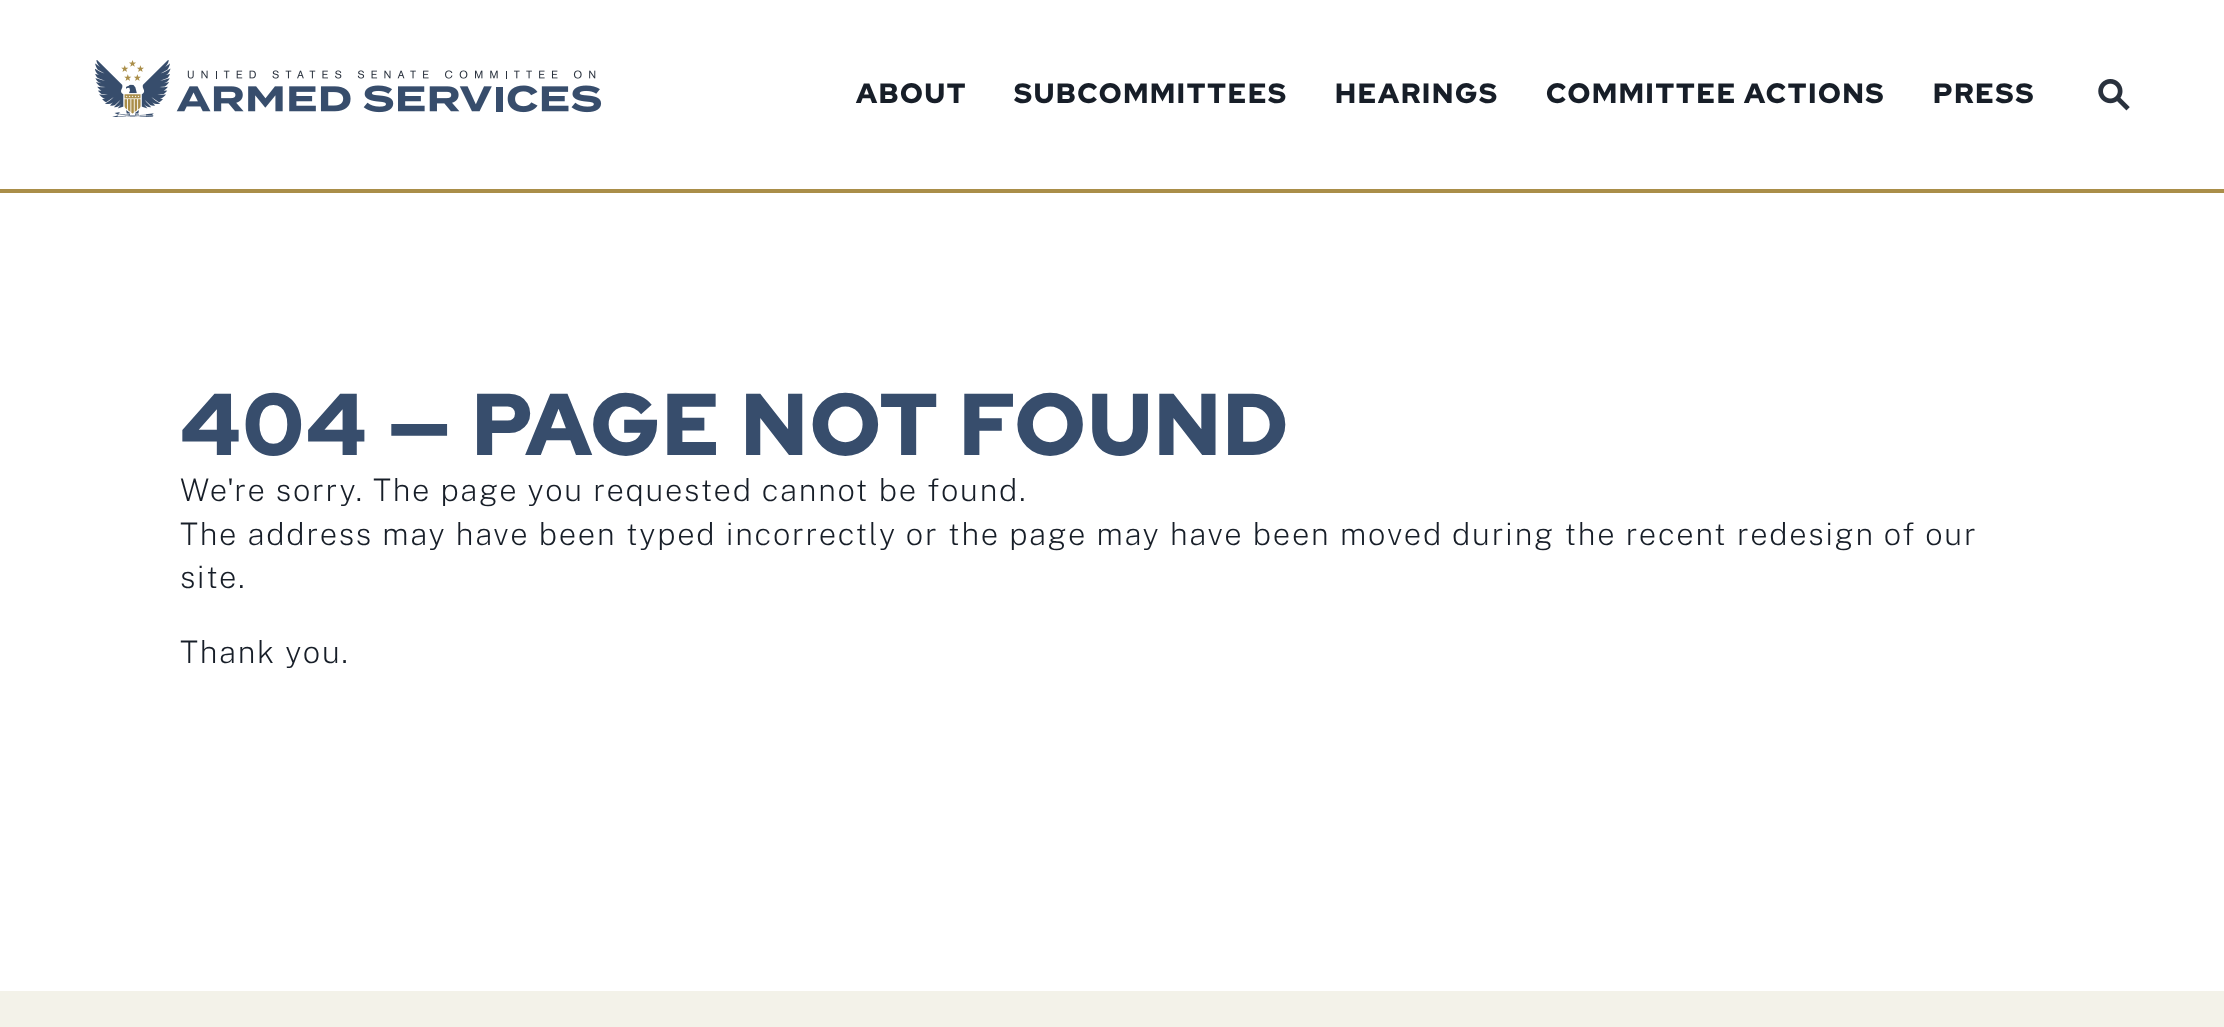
<svg xmlns="http://www.w3.org/2000/svg" width="2224" height="1027" viewBox="0 0 2224 1027">
  <rect width="100%" height="100%" fill="rgb(255,255,255)"/>
  <rect x="0" y="189" width="2224" height="4" fill="rgb(170,142,73)"/>
  <image x="95" y="60" width="507" height="57" href="pic1.png"/>
  <g font-family="Red Hat Display" font-size="28" font-weight="900" letter-spacing="1.75" fill="rgb(23,30,40)">
    <text x="856" y="103">ABOUT</text>
    <text x="1014" y="103">SUBCOMMITTEES</text>
    <text x="1335" y="103">HEARINGS</text>
    <text x="1546" y="103">COMMITTEE ACTIONS</text>
    <text x="1933" y="103">PRESS</text>
  </g>
  <image x="2098" y="79" width="32" height="32" href="pic2.png"/>
  <text x="180" y="455" font-family="Red Hat Display" font-size="87.5" font-weight="900" letter-spacing="2.2" fill="rgb(55,77,108)">404 — PAGE NOT FOUND</text>
  <g font-family="Public Sans" font-size="31" font-weight="200" letter-spacing="1.75" fill="rgb(23,30,40)">
    <text>
      <tspan x="180" y="501">We're sorry. The page you requested cannot be found.</tspan>
      <tspan x="180" y="545">The address may have been typed incorrectly or the page may have been moved during the recent redesign of our</tspan>
      <tspan x="180" y="588">site.</tspan>
    </text>
    <text x="180" y="663">Thank you.</text>
  </g>
  <rect x="0" y="991" width="2224" height="36" fill="rgb(243,242,233)"/>
</svg>
